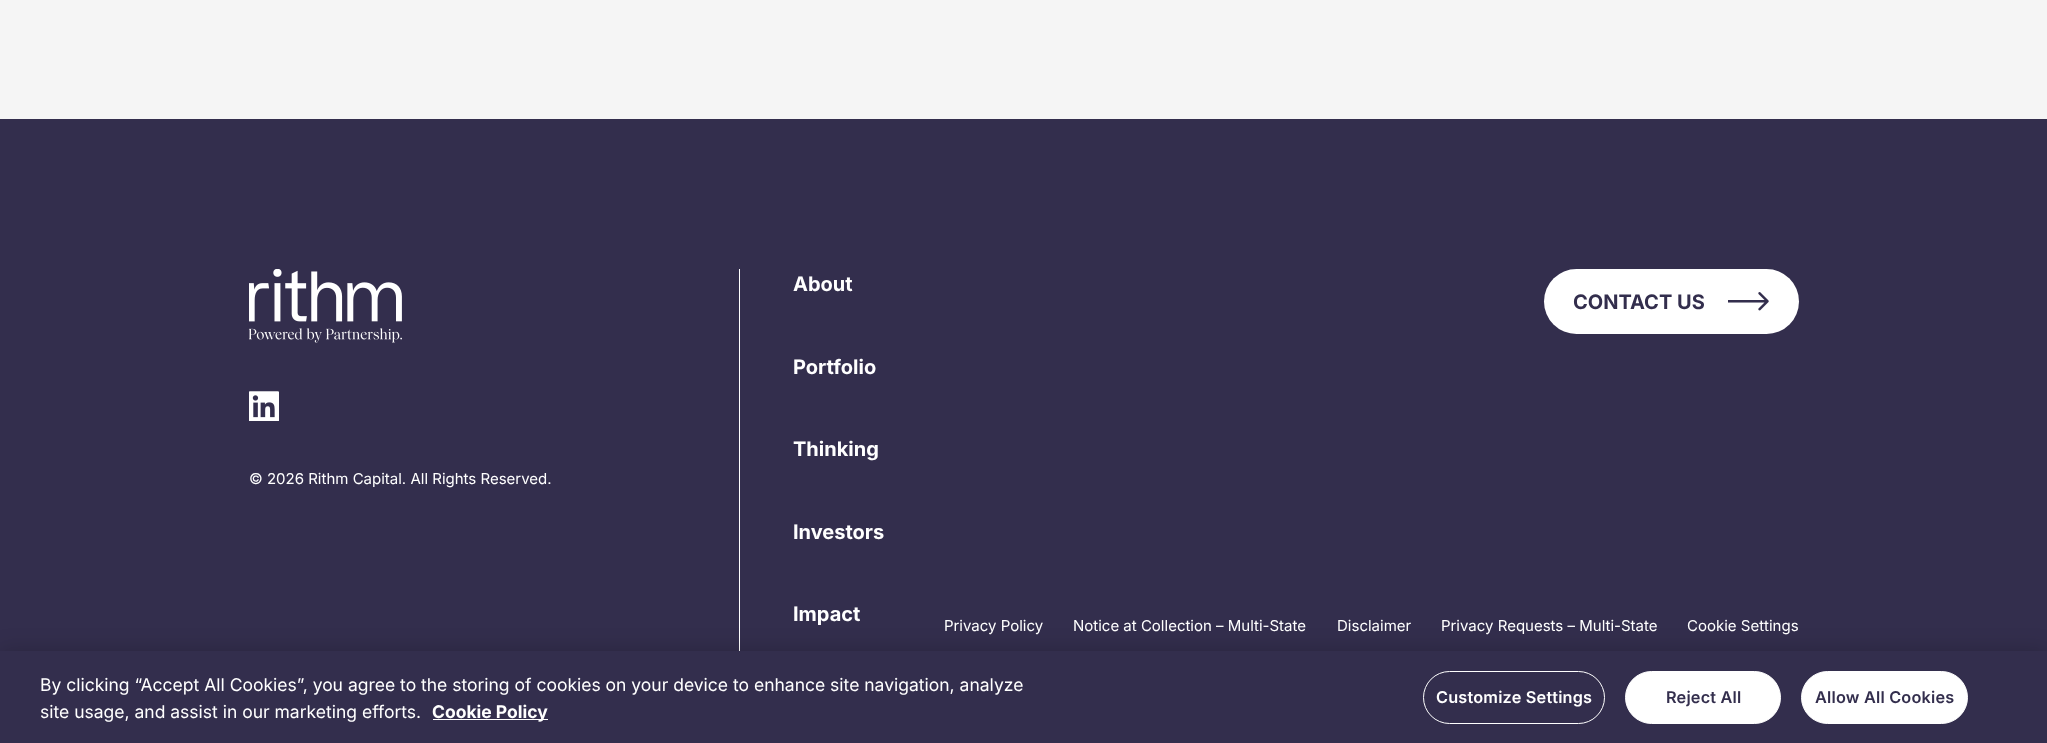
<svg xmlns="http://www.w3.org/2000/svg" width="2047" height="743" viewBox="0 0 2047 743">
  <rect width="100%" height="100%" fill="rgb(245,245,245)"/>
  <rect x="0" y="119" width="2047" height="532" fill="rgb(51,46,77)"/>
  <image x="249" y="269" width="153" height="74" href="pic1.png"/>
  <image x="249" y="391" width="30" height="30" href="pic2.png"/>
  <text x="249" y="484" font-family="Inter" font-size="15" fill="rgb(255,255,255)">© 2026 Rithm Capital. All Rights Reserved.</text>
  <rect x="739" y="269" width="1" height="382" fill="rgb(255,255,255)"/>
  <g font-family="Inter" font-size="20" font-weight="bold" fill="rgb(255,255,255)">
    <text x="793" y="291">About</text>
    <text x="793" y="374">Portfolio</text>
    <text x="793" y="456">Thinking</text>
    <text x="793" y="539">Investors</text>
    <text x="793" y="621">Impact</text>
  </g>
  <rect x="1544" y="269" width="255" height="65" rx="32.5" fill="rgb(255,255,255)"/>
  <text x="1573" y="309" font-family="Inter" font-size="20" font-weight="bold" fill="rgb(51,46,77)">CONTACT US</text>
  <image x="1728" y="292" width="41" height="19" href="pic3.png"/>
  <g font-family="Inter" font-size="15" fill="rgb(255,255,255)">
    <text x="944" y="631">Privacy Policy</text>
    <text x="1073" y="631">Notice at Collection – Multi-State</text>
    <text x="1337" y="631">Disclaimer</text>
    <text x="1441" y="631">Privacy Requests – Multi-State</text>
    <text x="1687" y="631">Cookie Settings</text>
  </g>
  <rect x="0" y="651" width="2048" height="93" fill="rgba(0,0,0,0.2)" filter="blur(11px)"/>
  <rect x="0" y="651" width="2047" height="92" fill="rgb(51,46,77)"/>
  <g font-family="Inter" font-size="17.5" fill="rgb(255,255,255)">
    <text>
      <tspan x="40" y="691">By clicking “Accept All Cookies”, you agree to the storing of cookies on your device to enhance site navigation, analyze</tspan>
      <tspan x="40" y="718">site usage, and assist in our marketing efforts.</tspan>
    </text>
  </g>
  <rect x="433" y="719" width="115" height="1" fill="rgb(255,255,255)"/>
  <text x="432" y="718" font-family="Inter" font-size="17.5" font-weight="bold" fill="rgb(255,255,255)">Cookie Policy</text>
  <rect x="1423.5" y="671.5" width="181" height="52" rx="26" fill="none" stroke="rgb(255,255,255)"/>
  <text x="1436" y="703" font-family="Inter" font-size="16.25" font-weight="600" letter-spacing="0.2" fill="rgb(255,255,255)">Customize Settings</text>
  <rect x="1625.5" y="671.5" width="155" height="52" rx="26" fill="rgb(255,255,255)" stroke="rgb(255,255,255)"/>
  <text x="1666" y="703" font-family="Inter" font-size="16.25" font-weight="600" letter-spacing="0.2" fill="rgb(51,46,77)">Reject All</text>
  <rect x="1801.5" y="671.5" width="166" height="52" rx="26" fill="rgb(255,255,255)" stroke="rgb(255,255,255)"/>
  <text x="1815" y="703" font-family="Inter" font-size="16.25" font-weight="600" letter-spacing="0.2" fill="rgb(51,46,77)">Allow All Cookies</text>
</svg>
